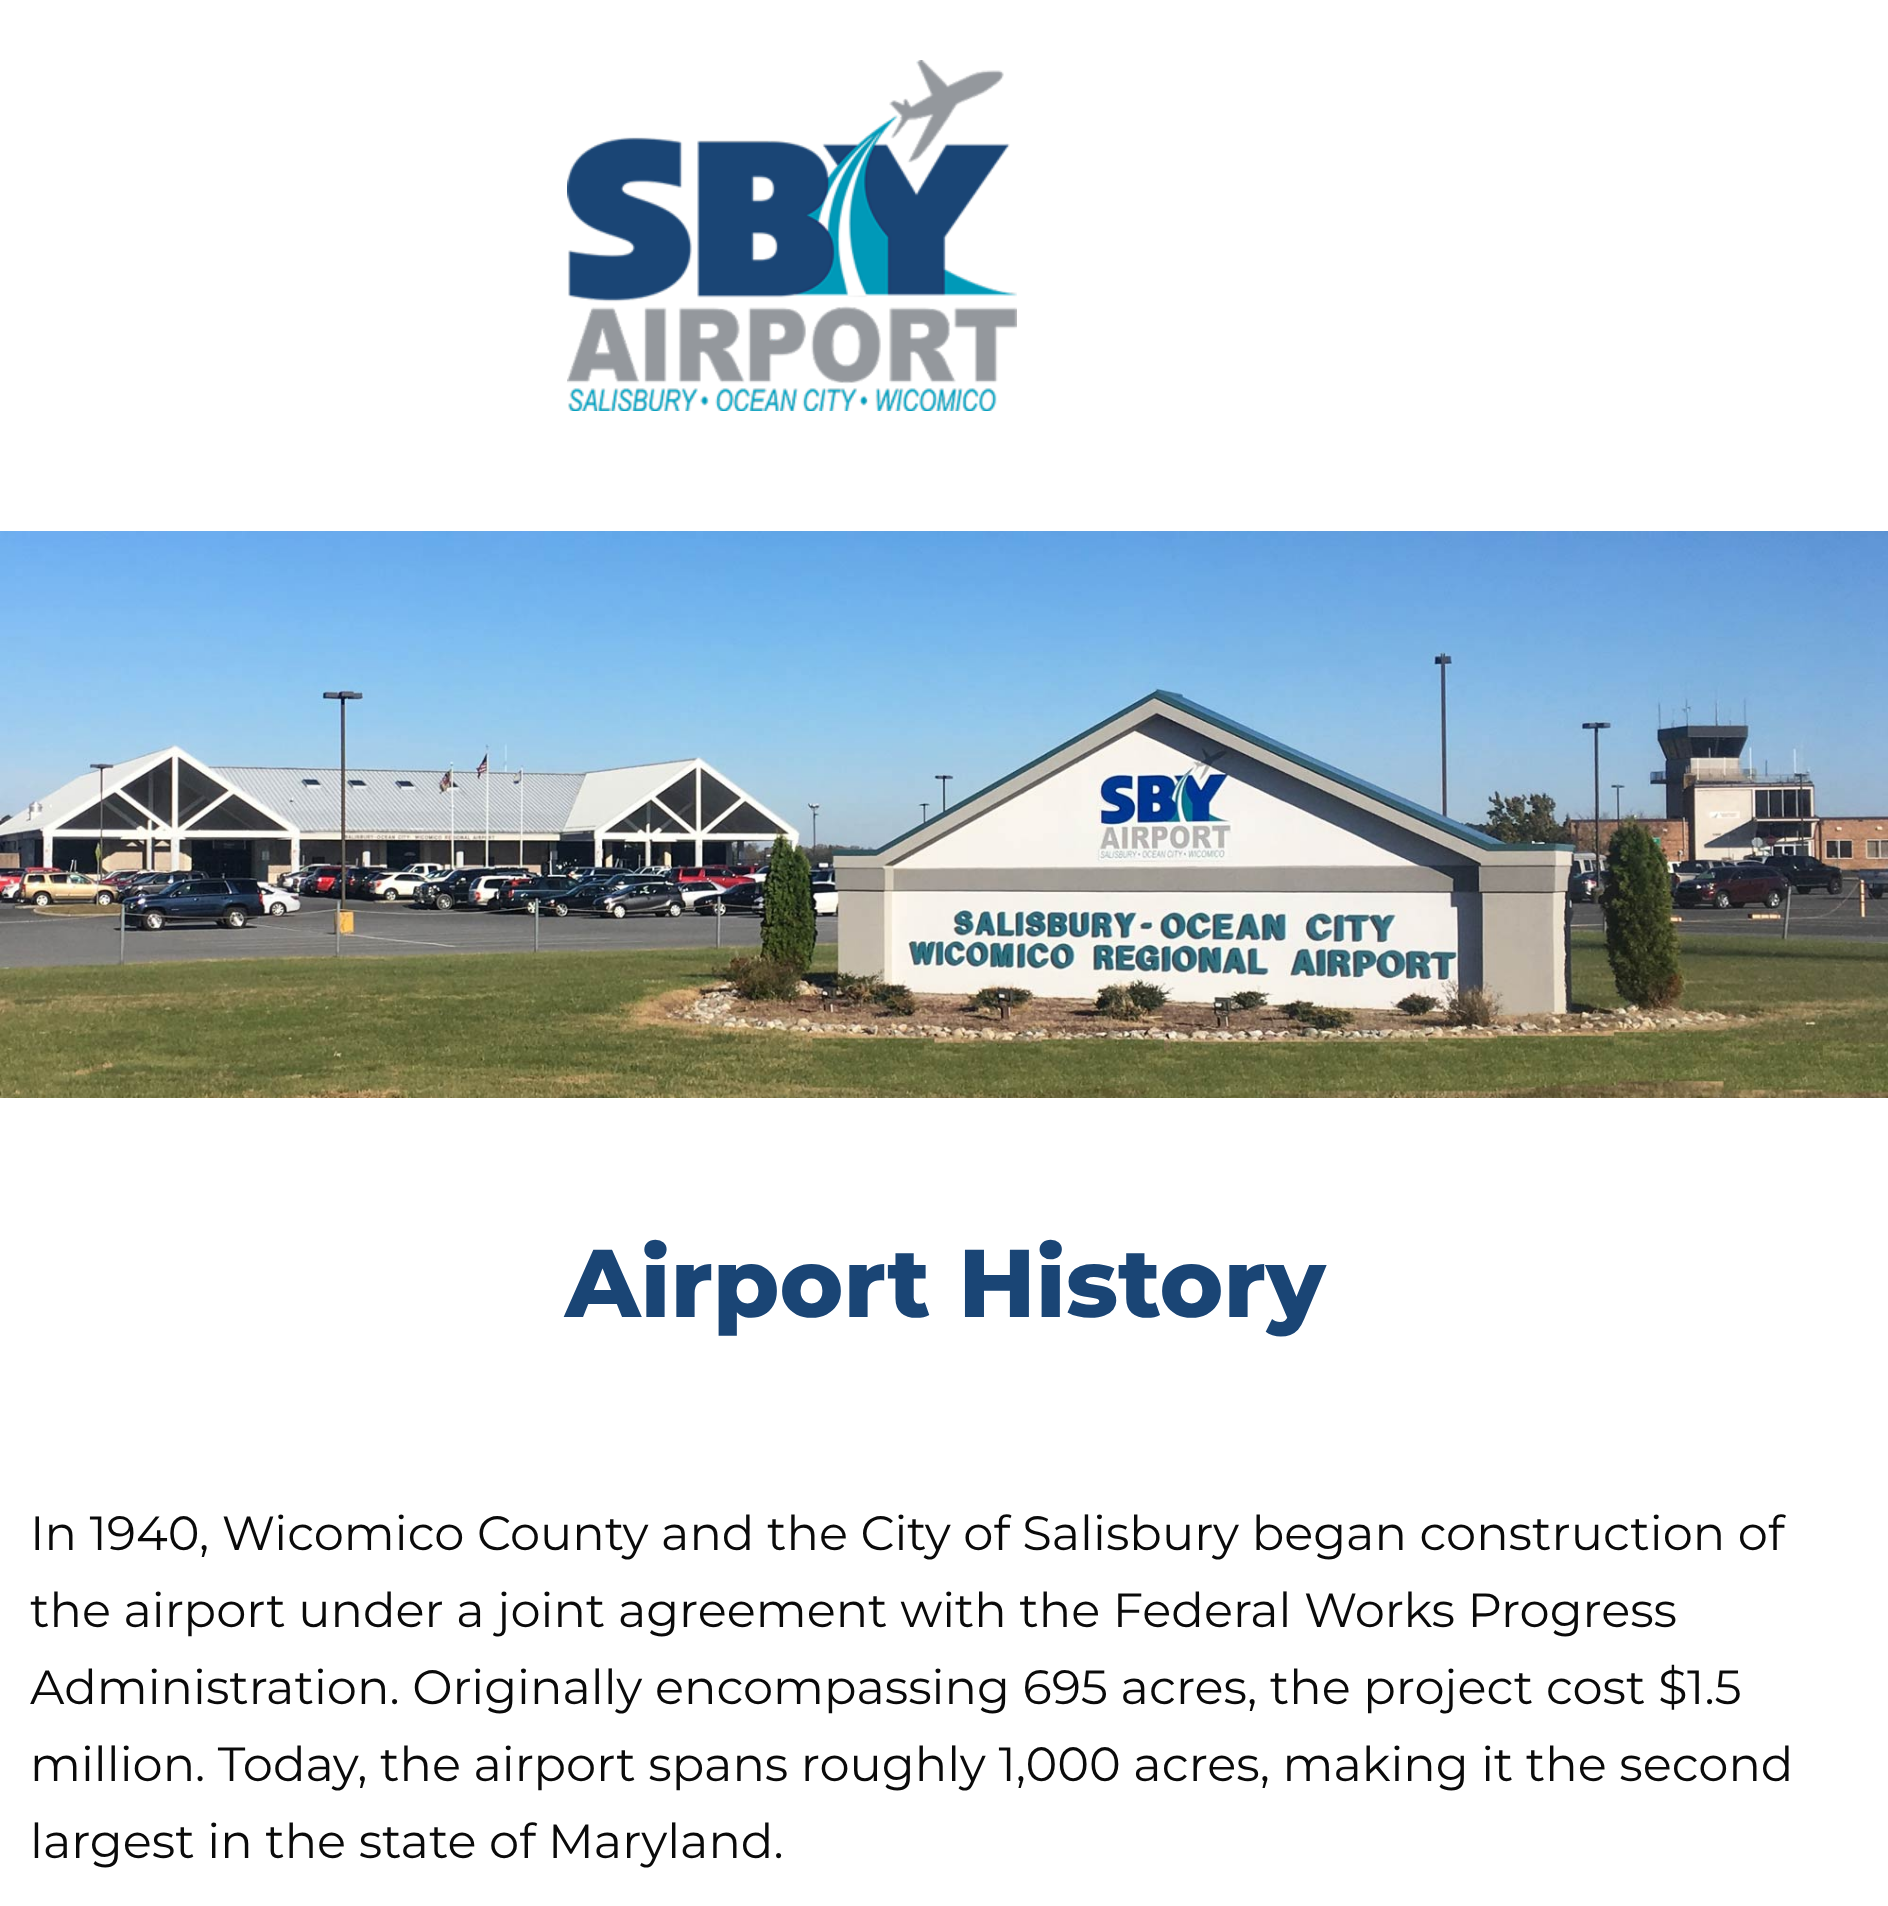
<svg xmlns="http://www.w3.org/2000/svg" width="1888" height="1906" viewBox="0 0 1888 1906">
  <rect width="100%" height="100%" fill="rgb(255,255,255)"/>
  <image x="567" y="60" width="450" height="351" href="pic1.png"/>
  <image x="0" y="531" width="1888" height="567" href="pic2.png"/>
  <text x="565" y="1317" font-family="Montserrat" font-size="96" font-weight="800" fill="rgb(26,69,117)">Airport History</text>
  <g font-family="Montserrat" font-size="48" fill="rgb(10,10,10)">
    <text>
      <tspan x="30" y="1550">In 1940, Wicomico County and the City of Salisbury began construction of</tspan>
      <tspan x="30" y="1627">the airport under a joint agreement with the Federal Works Progress</tspan>
      <tspan x="30" y="1704">Administration. Originally encompassing 695 acres, the project cost $1.5</tspan>
      <tspan x="30" y="1781">million. Today, the airport spans roughly 1,000 acres, making it the second</tspan>
      <tspan x="30" y="1858">largest in the state of Maryland.</tspan>
    </text>
  </g>
</svg>
